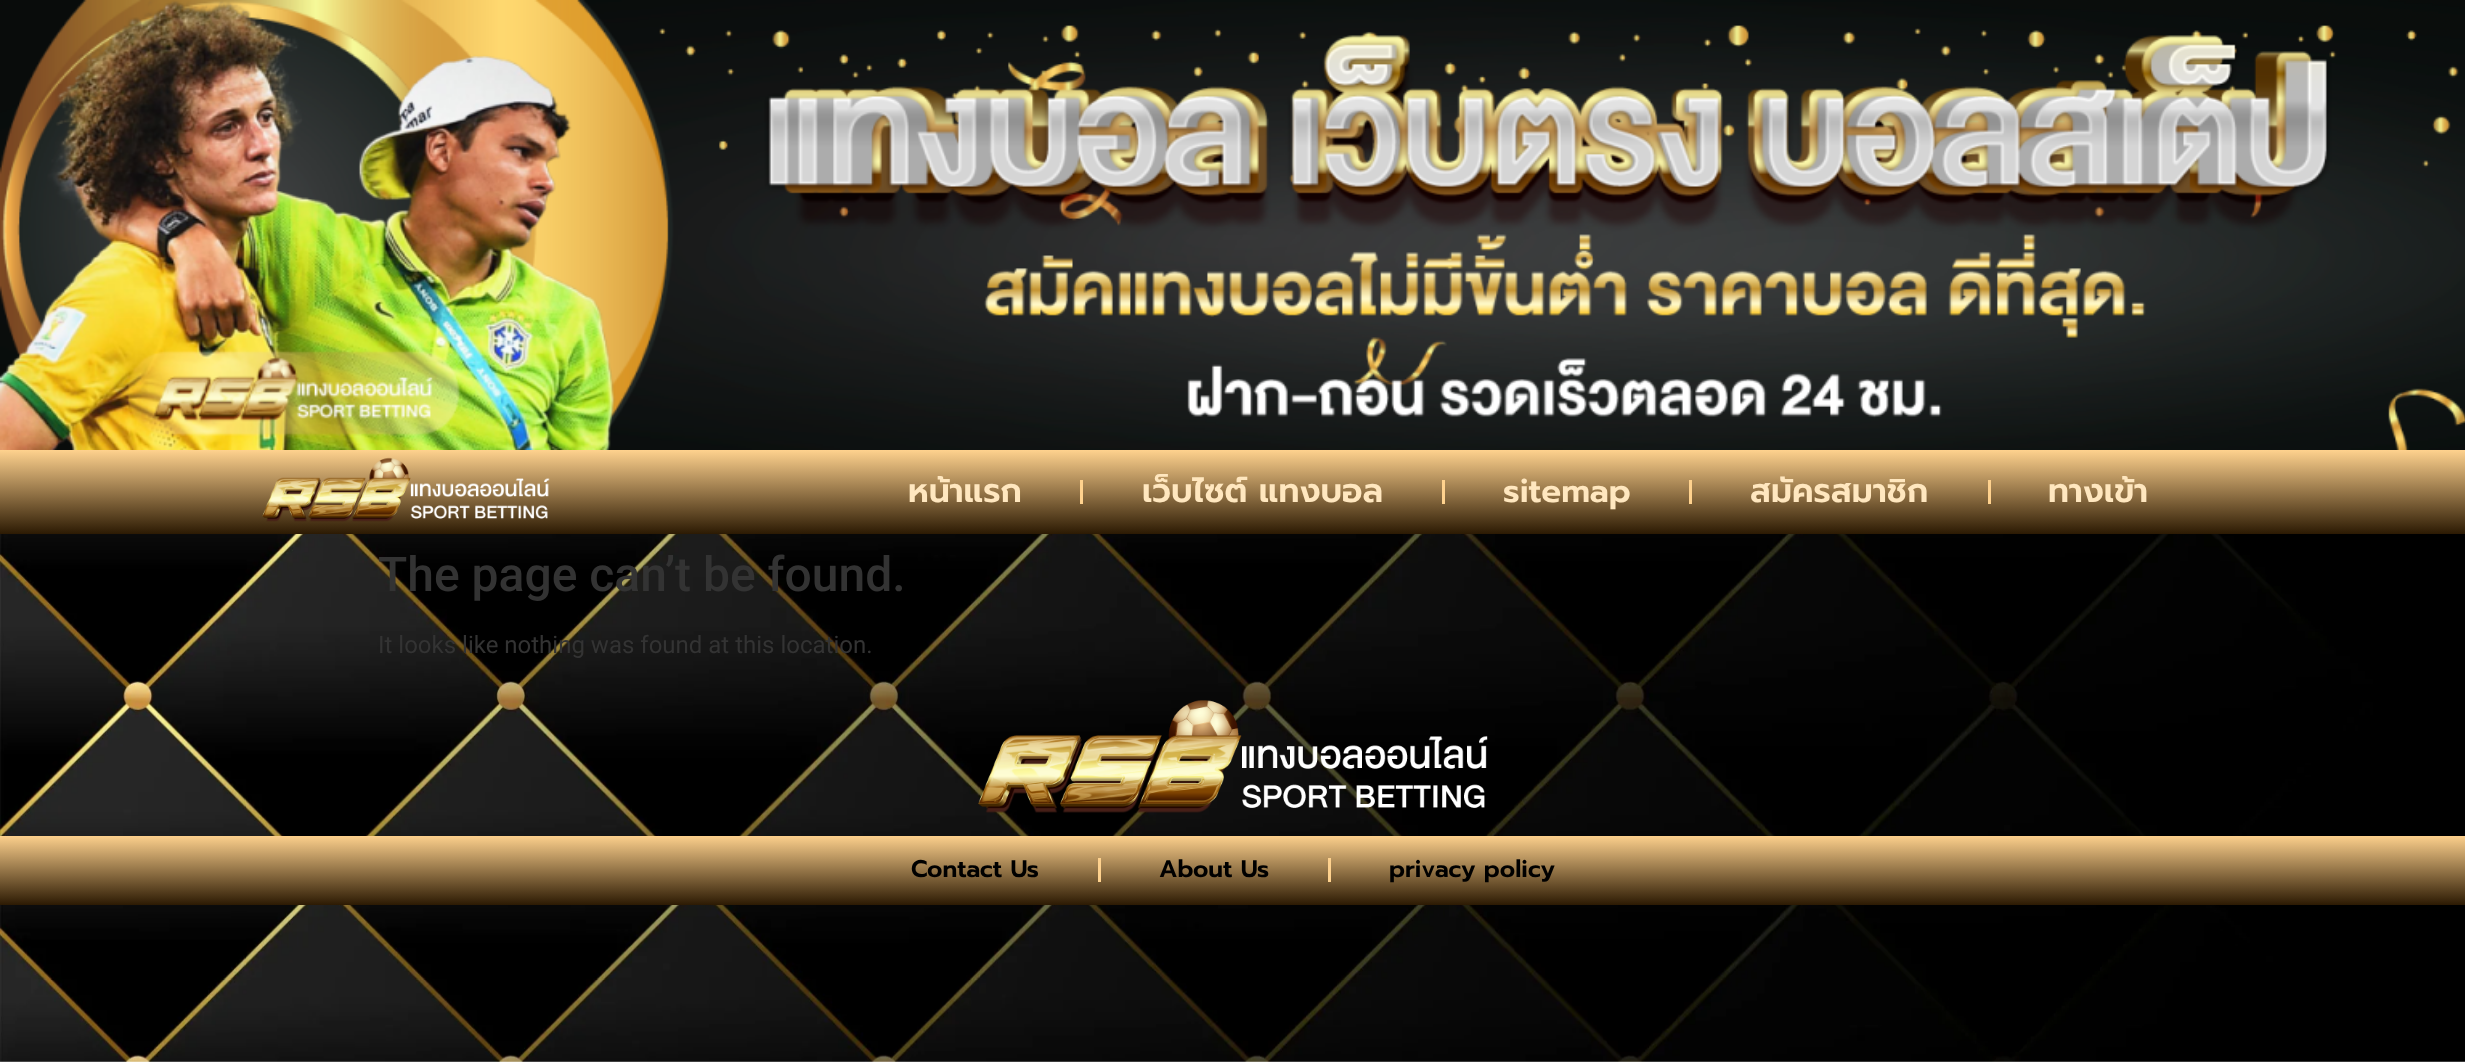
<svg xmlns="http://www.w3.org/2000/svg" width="2465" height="1062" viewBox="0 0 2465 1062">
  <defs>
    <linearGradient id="g1" gradientUnits="userSpaceOnUse" x1="1233" y1="450" x2="1233" y2="534"><stop offset="0" stop-color="rgb(255,210,142)"/><stop offset="1" stop-color="rgb(44,26,3)"/></linearGradient>
    <linearGradient id="g2" gradientUnits="userSpaceOnUse" x1="1233" y1="835" x2="1233" y2="905"><stop offset="0" stop-color="rgb(255,210,142)"/><stop offset="1" stop-color="rgb(44,26,3)"/></linearGradient>
  </defs>
  <rect width="100%" height="100%" fill="rgb(255,255,255)"/>
  <image x="0" y="534" width="2465" height="528" href="pic1.png"/>
  <image x="0" y="0" width="2465" height="450" href="pic2.png"/>
  <rect x="0" y="450" width="2465" height="84" fill="url(#g1)"/>
  <image x="262" y="457" width="288" height="65" href="pic3.png"/>
  <text x="908" y="502" font-family="Prompt" font-size="33" font-weight="600" fill="rgb(255,231,191)">หน้าแรก</text>
  <rect x="1080" y="480" width="3" height="24" fill="rgb(255,210,142)"/>
  <text x="1142" y="502" font-family="Prompt" font-size="33" font-weight="600" fill="rgb(255,231,191)">เว็บไซต์ แทงบอล</text>
  <rect x="1442" y="480" width="3" height="24" fill="rgb(255,210,142)"/>
  <text x="1503" y="502" font-family="Prompt" font-size="33" font-weight="600" fill="rgb(255,231,191)">sitemap</text>
  <rect x="1689" y="480" width="3" height="24" fill="rgb(255,210,142)"/>
  <text x="1750" y="502" font-family="Prompt" font-size="33" font-weight="600" fill="rgb(255,231,191)">สมัครสมาชิก</text>
  <rect x="1988" y="480" width="3" height="24" fill="rgb(255,210,142)"/>
  <text x="2048" y="502" font-family="Prompt" font-size="33" font-weight="600" fill="rgb(255,231,191)">ทางเข้า</text>
  <text x="378" y="591" font-family="Roboto" font-size="48" font-weight="500" fill="rgb(51,51,51)">The page can’t be found.</text>
  <text x="378" y="653" font-family="Roboto" font-size="24" fill="rgb(51,51,51)">It looks like nothing was found at this location.</text>
  <image x="978" y="700" width="510" height="113" href="pic4.png"/>
  <rect x="0" y="836" width="2465" height="69" fill="url(#g2)"/>
  <text x="911" y="877" font-family="Prompt" font-size="24" font-weight="600" fill="rgb(0,0,0)">Contact Us</text>
  <rect x="1098" y="858" width="3" height="24" fill="rgb(255,210,142)"/>
  <text x="1159" y="877" font-family="Prompt" font-size="24" font-weight="600" fill="rgb(0,0,0)">About Us</text>
  <rect x="1328" y="858" width="3" height="24" fill="rgb(255,210,142)"/>
  <text x="1389" y="877" font-family="Prompt" font-size="24" font-weight="600" fill="rgb(0,0,0)">privacy policy</text>
</svg>
